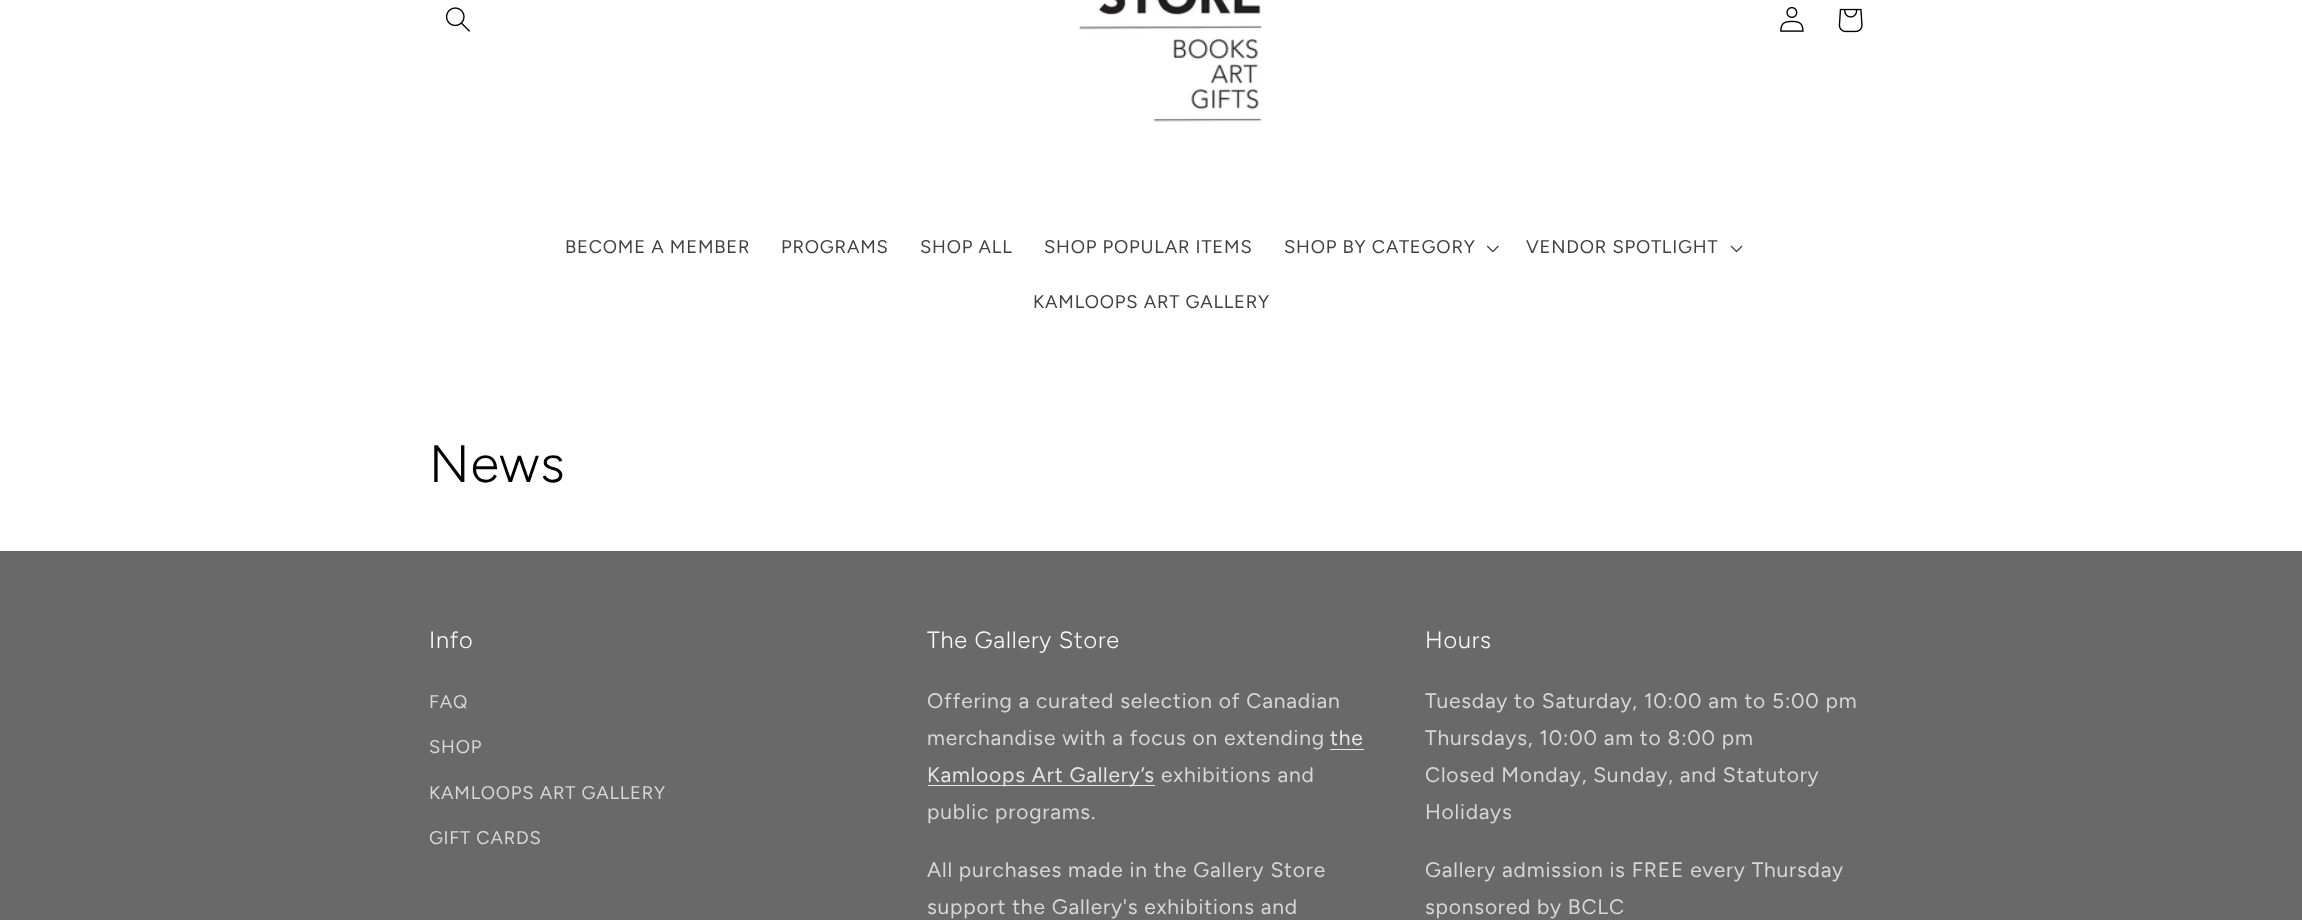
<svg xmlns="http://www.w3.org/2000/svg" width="2302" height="920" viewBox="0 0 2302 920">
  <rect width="100%" height="100%" fill="rgb(255,255,255)"/>
  <image x="445" y="7" width="25" height="25" href="pic1.png"/>
  <image x="1078" y="0" width="185" height="124" href="pic2.png"/>
  <image x="1780" y="6" width="24" height="26" href="pic3.png"/>
  <image x="1838" y="8" width="25" height="25" href="pic4.png"/>
  <g font-family="Figtree" font-size="18.4" letter-spacing="0.8" fill="rgb(64,64,64)">
    <text x="565" y="253">BECOME A MEMBER</text>
    <text x="781" y="253">PROGRAMS</text>
    <text x="920" y="253">SHOP ALL</text>
    <text x="1044" y="253">SHOP POPULAR ITEMS</text>
    <text x="1284" y="253">SHOP BY CATEGORY</text>
  </g>
  <image x="1487" y="245" width="12" height="8" href="pic5.png"/>
  <text x="1526" y="253" font-family="Figtree" font-size="18.4" letter-spacing="0.8" fill="rgb(64,64,64)">VENDOR SPOTLIGHT</text>
  <image x="1730" y="245" width="13" height="8" href="pic6.png"/>
  <text x="1033" y="308" font-family="Figtree" font-size="18.4" letter-spacing="0.8" fill="rgb(64,64,64)">KAMLOOPS ART GALLERY</text>
  <text x="429" y="482" font-family="Figtree" font-size="52.5" font-weight="300" letter-spacing="0.8" fill="rgb(0,0,0)">News</text>
  <rect x="0" y="551" width="2302" height="369" fill="rgb(105,105,105)"/>
  <text x="429" y="648" font-family="Figtree" font-size="23.5" font-weight="300" letter-spacing="0.8" fill="rgb(252,252,252)">Info</text>
  <g font-family="Figtree" font-size="18.4" letter-spacing="0.8" fill="rgb(215,215,215)">
    <text x="429" y="708">FAQ</text>
    <text x="429" y="753">SHOP</text>
    <text x="429" y="799">KAMLOOPS ART GALLERY</text>
    <text x="429" y="844">GIFT CARDS</text>
  </g>
  <text x="927" y="648" font-family="Figtree" font-size="23.5" font-weight="300" letter-spacing="0.8" fill="rgb(252,252,252)">The Gallery Store</text>
  <g font-family="Figtree" font-size="21" letter-spacing="0.8" fill="rgb(215,215,215)">
    <text>
      <tspan x="927" y="708">Offering a curated selection of Canadian</tspan>
      <tspan x="927" y="745">merchandise with a focus on extending</tspan>
    </text>
  </g>
  <text x="1330" y="745" font-family="Figtree" font-size="21" letter-spacing="0.8" fill="rgb(230,230,230)">the</text>
  <rect x="1330" y="749" width="34" height="1" fill="rgb(230,230,230)"/>
  <rect x="928" y="785" width="227" height="1" fill="rgb(230,230,230)"/>
  <text x="927" y="782" font-family="Figtree" font-size="21" letter-spacing="0.8" fill="rgb(230,230,230)">Kamloops Art Gallery’s</text>
  <g font-family="Figtree" font-size="21" letter-spacing="0.8" fill="rgb(215,215,215)">
    <text x="1161" y="782">exhibitions and</text>
    <text x="927" y="819">public programs.</text>
    <text>
      <tspan x="927" y="877">All purchases made in the Gallery Store</tspan>
      <tspan x="927" y="914">support the Gallery's exhibitions and</tspan>
    </text>
  </g>
  <text x="1425" y="648" font-family="Figtree" font-size="23.5" font-weight="300" letter-spacing="0.8" fill="rgb(252,252,252)">Hours</text>
  <g font-family="Figtree" font-size="21" letter-spacing="0.8" fill="rgb(215,215,215)">
    <text>
      <tspan x="1425" y="708">Tuesday to Saturday, 10:00 am to 5:00 pm</tspan>
      <tspan x="1425" y="745">Thursdays, 10:00 am to 8:00 pm</tspan>
      <tspan x="1425" y="782">Closed Monday, Sunday, and Statutory</tspan>
      <tspan x="1425" y="819">Holidays</tspan>
    </text>
    <text>
      <tspan x="1425" y="877">Gallery admission is FREE every Thursday</tspan>
      <tspan x="1425" y="914">sponsored by BCLC</tspan>
    </text>
  </g>
</svg>
